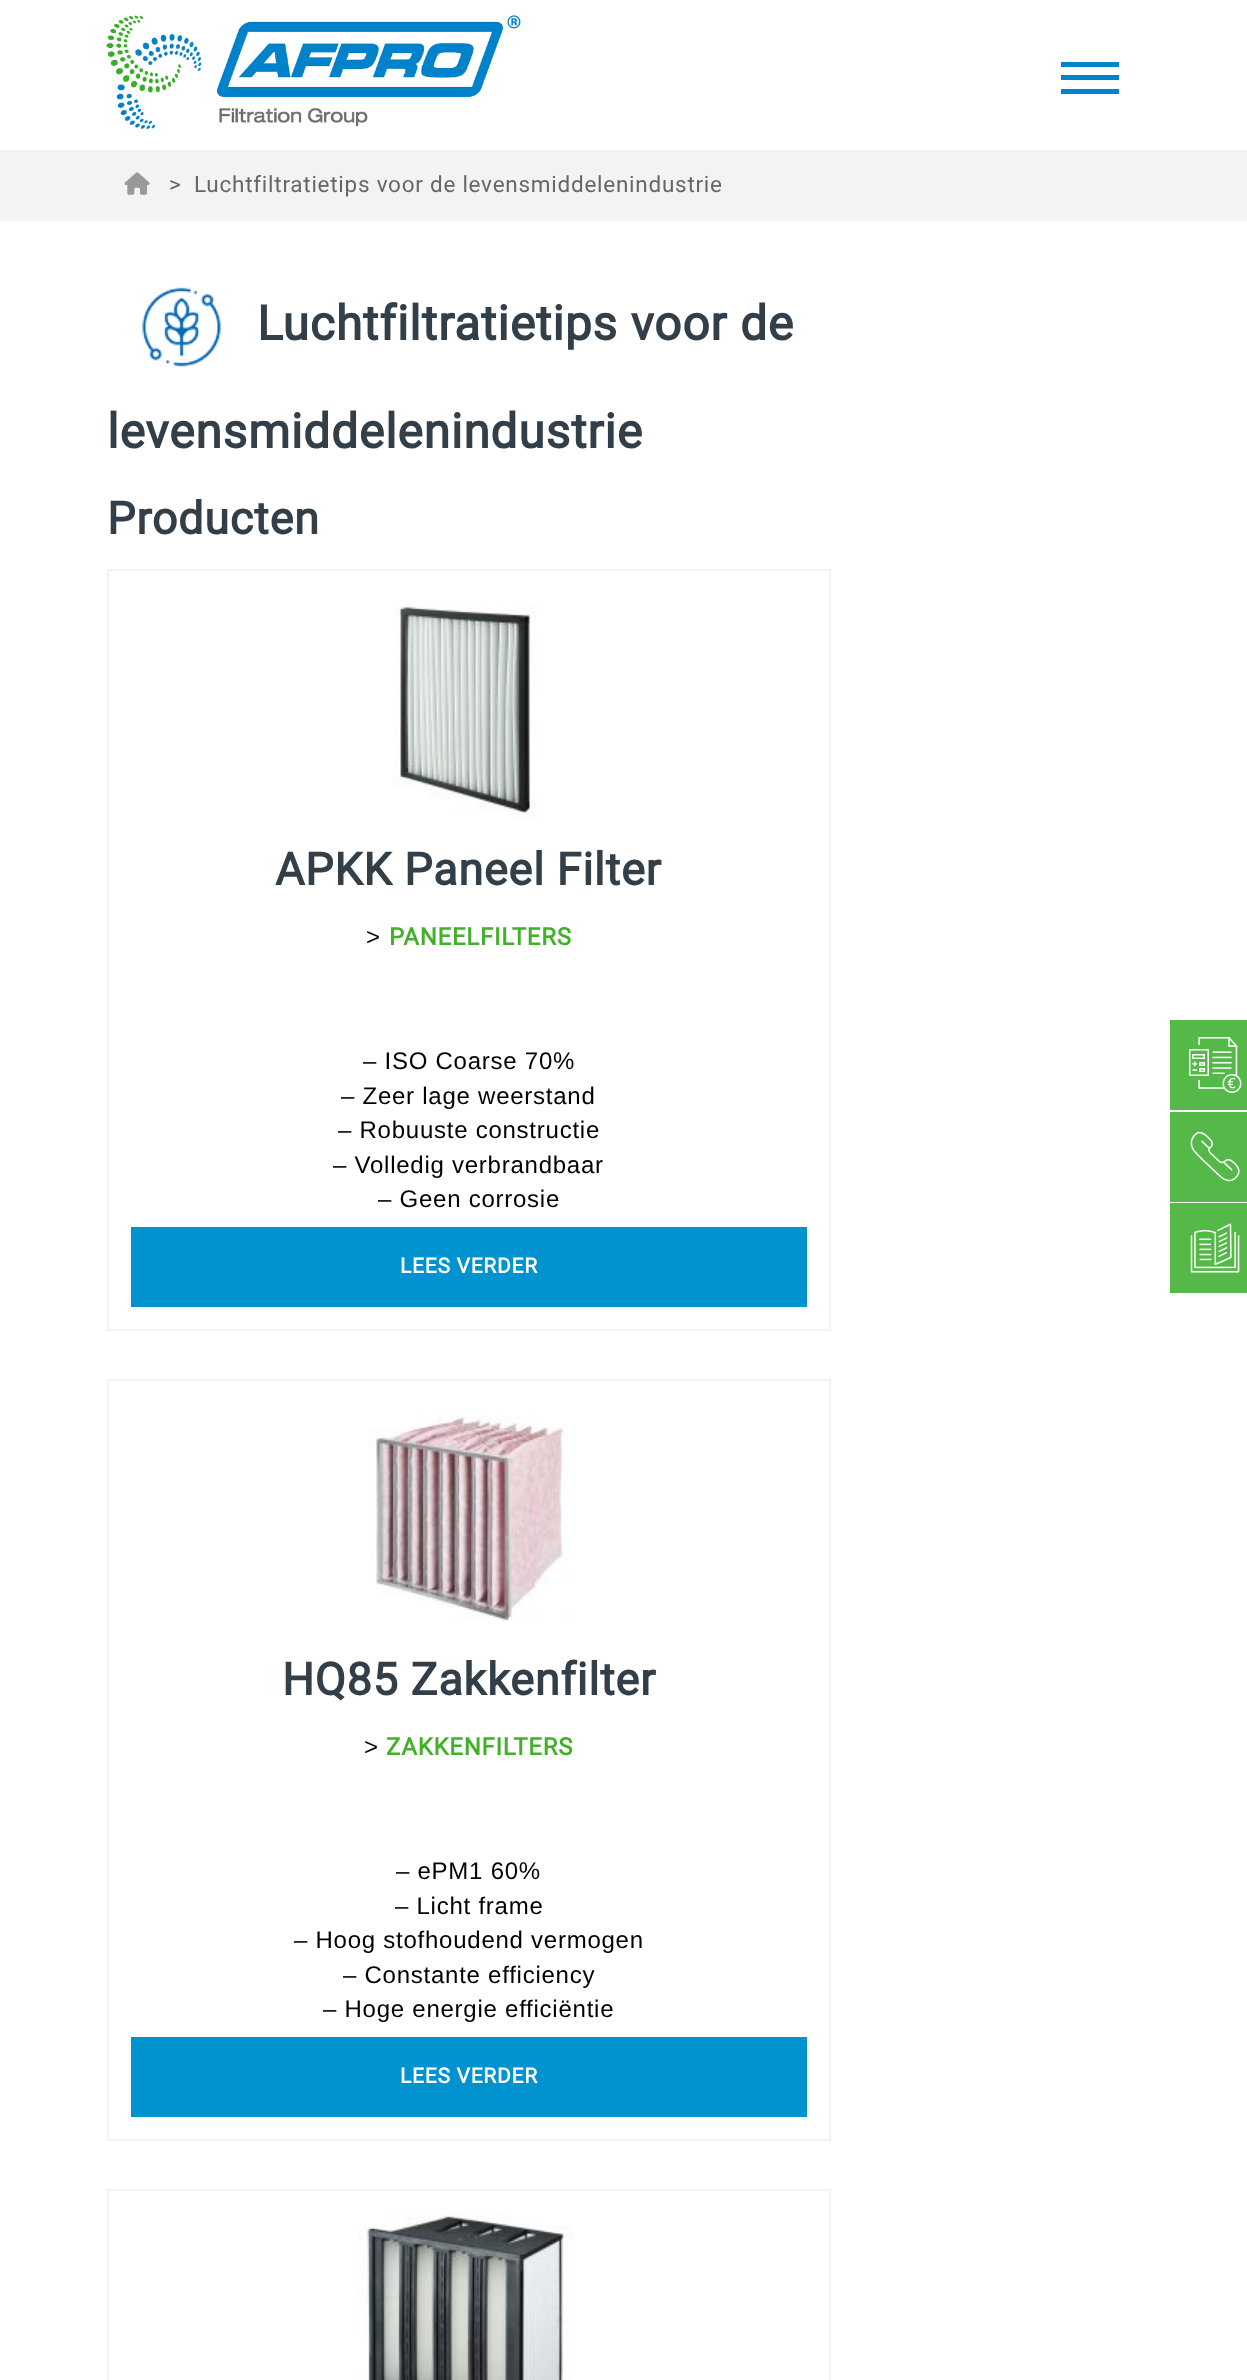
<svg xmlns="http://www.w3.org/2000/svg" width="1247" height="2380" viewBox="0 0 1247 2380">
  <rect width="100%" height="100%" fill="rgb(255,255,255)"/>
  <image x="106" y="15" width="415" height="114" href="pic1.png"/>
  <rect x="1061" y="75" width="58" height="5" fill="rgb(0,133,202)"/>
  <rect x="1061" y="62" width="58" height="5" fill="rgb(0,133,202)"/>
  <rect x="1061" y="89" width="58" height="5" fill="rgb(0,133,202)"/>
  <rect x="0" y="150" width="1247" height="71" fill="rgb(243,243,243)"/>
  <image x="124" y="172" width="26" height="23" href="pic2.png"/>
  <g font-family="Roboto" font-size="22.5" letter-spacing="0.75" fill="rgb(102,102,102)">
    <text x="169" y="192">&gt;</text>
    <text x="194" y="192">Luchtfiltratietips voor de levensmiddelenindustrie</text>
  </g>
  <image x="142" y="287" width="79" height="80" href="pic3.png"/>
  <g font-family="Roboto" font-size="48" font-weight="bold" letter-spacing="0.75" fill="rgb(50,62,72)">
    <text x="257" y="340">Luchtfiltratietips voor de</text>
    <text x="107" y="448">levensmiddelenindustrie</text>
  </g>
  <text x="107" y="534" font-family="Roboto" font-size="45" font-weight="bold" letter-spacing="0.75" fill="rgb(50,62,72)">Producten</text>
  <rect x="108" y="570" width="722" height="760" fill="none" stroke="rgb(243,243,243)" stroke-width="2"/>
  <image x="393" y="606" width="144" height="213" href="pic4.png"/>
  <text x="275" y="885" font-family="Roboto" font-size="45" font-weight="bold" letter-spacing="0.75" fill="rgb(50,62,72)">APKK Paneel Filter</text>
  <text x="366" y="945" font-family="Liberation Sans" font-size="24" letter-spacing="0.75" fill="rgb(0,0,0)">&gt;</text>
  <text x="389" y="945" font-family="Roboto" font-size="24" font-weight="bold" letter-spacing="0.75" fill="rgb(67,176,42)">PANEELFILTERS</text>
  <g font-family="Liberation Sans" font-size="24" letter-spacing="0.75" fill="rgb(0,0,0)">
    <text x="363" y="1069">– ISO Coarse 70%</text>
    <text x="341" y="1104">– Zeer lage weerstand</text>
    <text x="338" y="1138">– Robuuste constructie</text>
    <text x="333" y="1173">– Volledig verbrandbaar</text>
    <text x="378" y="1207">– Geen corrosie</text>
  </g>
  <rect x="131" y="1227" width="676" height="80" fill="rgb(0,147,208)"/>
  <text x="400" y="1273" font-family="Roboto" font-size="21" font-weight="bold" letter-spacing="0.75" fill="rgb(255,255,255)">LEES VERDER</text>
  <rect x="108" y="1380" width="722" height="760" fill="none" stroke="rgb(243,243,243)" stroke-width="2"/>
  <image x="369" y="1415" width="201" height="206" href="pic5.png"/>
  <text x="282" y="1695" font-family="Roboto" font-size="45" font-weight="bold" letter-spacing="0.75" fill="rgb(50,62,72)">HQ85 Zakkenfilter</text>
  <text x="364" y="1755" font-family="Liberation Sans" font-size="24" letter-spacing="0.75" fill="rgb(0,0,0)">&gt;</text>
  <text x="386" y="1755" font-family="Roboto" font-size="24" font-weight="bold" letter-spacing="0.75" fill="rgb(67,176,42)">ZAKKENFILTERS</text>
  <g font-family="Liberation Sans" font-size="24" letter-spacing="0.75" fill="rgb(0,0,0)">
    <text x="396" y="1879">– ePM1 60%</text>
    <text x="395" y="1914">– Licht frame</text>
    <text x="294" y="1948">– Hoog stofhoudend vermogen</text>
    <text x="343" y="1983">– Constante efficiency</text>
    <text x="323" y="2017">– Hoge energie efficiëntie</text>
  </g>
  <rect x="131" y="2037" width="676" height="80" fill="rgb(0,147,208)"/>
  <text x="400" y="2083" font-family="Roboto" font-size="21" font-weight="bold" letter-spacing="0.75" fill="rgb(255,255,255)">LEES VERDER</text>
  <rect x="108" y="2190" width="722" height="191" fill="none" stroke="rgb(243,243,243)" stroke-width="2"/>
  <image x="358" y="2214" width="215" height="166" href="pic6.png"/>
  <rect x="1170" y="1020" width="77" height="90" fill="rgb(84,185,72)"/>
  <image x="1189" y="1037" width="53" height="56" href="pic7.png"/>
  <rect x="1170" y="1112" width="77" height="90" fill="rgb(84,185,72)"/>
  <image x="1190" y="1131" width="50" height="51" href="pic8.png"/>
  <rect x="1170" y="1203" width="77" height="90" fill="rgb(84,185,72)"/>
  <image x="1190" y="1223" width="50" height="50" href="pic9.png"/>
</svg>
